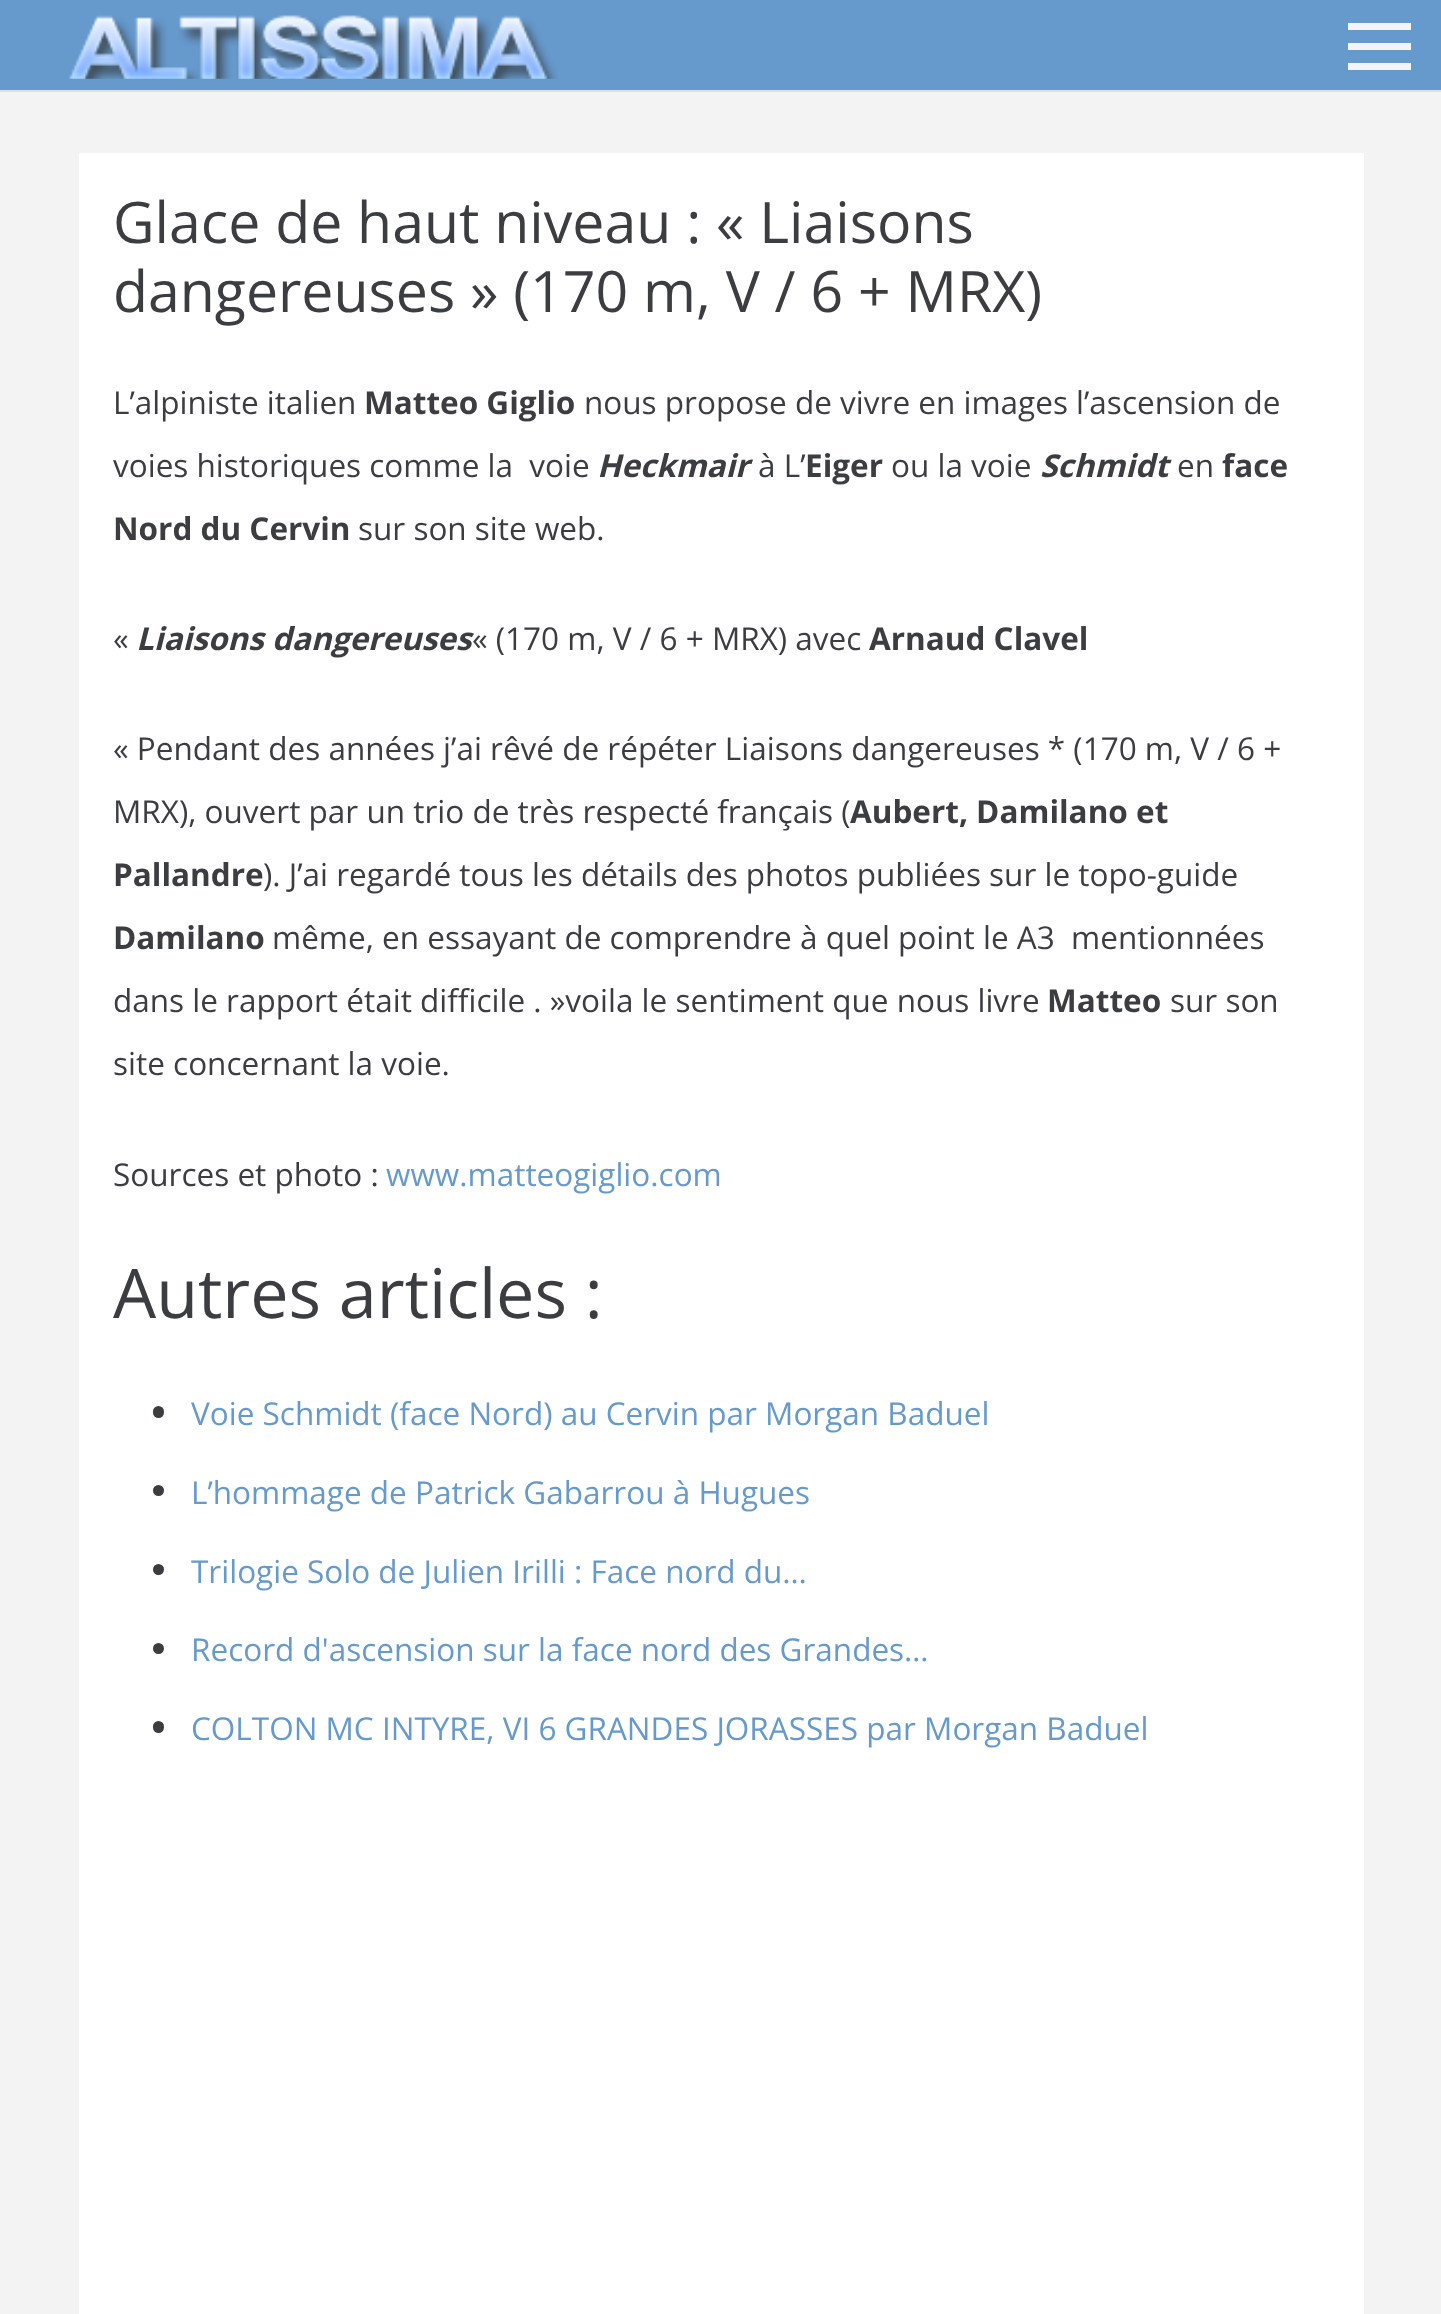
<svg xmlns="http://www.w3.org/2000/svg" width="1441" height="2314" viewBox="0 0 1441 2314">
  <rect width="100%" height="100%" fill="rgb(243,243,243)"/>
  <rect x="0" y="90" width="1441" height="2" fill="rgb(224,224,224)"/>
  <rect x="0" y="0" width="1441" height="90" fill="rgb(102,153,204)"/>
  <image x="69" y="15" width="489" height="64" href="pic1.png"/>
  <rect x="1348" y="43" width="63" height="7" fill="rgb(242,244,247)"/>
  <rect x="1348" y="23" width="63" height="7" fill="rgb(242,244,247)"/>
  <rect x="1348" y="63" width="63" height="7" fill="rgb(242,244,247)"/>
  <rect x="79" y="153" width="1285" height="2161" fill="rgb(255,255,255)"/>
  <g font-family="Open Sans" font-size="57.2" fill="rgb(59,61,64)">
    <text>
      <tspan x="113" y="243">Glace de haut niveau : « Liaisons</tspan>
      <tspan x="113" y="312">dangereuses » (170 m, V / 6 + MRX)</tspan>
    </text>
  </g>
  <text x="113" y="414" font-family="Open Sans" font-size="31.5" fill="rgb(59,61,64)">L’alpiniste italien</text>
  <text x="364" y="414" font-family="Open Sans" font-size="31.5" font-weight="bold" fill="rgb(59,61,64)">Matteo Giglio</text>
  <g font-family="Open Sans" font-size="31.5" fill="rgb(59,61,64)">
    <text x="584" y="414">nous propose de vivre en images l’ascension de</text>
    <text x="113" y="477" xml:space="preserve">voies historiques comme la  voie</text>
  </g>
  <text x="597" y="477" font-family="Open Sans" font-size="31.5" font-weight="bold" font-style="italic" fill="rgb(59,61,64)">Heckmair</text>
  <text x="758" y="477" font-family="Open Sans" font-size="31.5" fill="rgb(59,61,64)">à L’</text>
  <text x="805" y="477" font-family="Open Sans" font-size="31.5" font-weight="bold" fill="rgb(59,61,64)">Eiger</text>
  <text x="891" y="477" font-family="Open Sans" font-size="31.5" fill="rgb(59,61,64)">ou la voie</text>
  <text x="1040" y="477" font-family="Open Sans" font-size="31.5" font-weight="bold" font-style="italic" fill="rgb(59,61,64)">Schmidt</text>
  <text x="1177" y="477" font-family="Open Sans" font-size="31.5" fill="rgb(59,61,64)">en</text>
  <g font-family="Open Sans" font-size="31.5" font-weight="bold" fill="rgb(59,61,64)">
    <text x="1222" y="477">face</text>
    <text x="113" y="540">Nord du Cervin</text>
  </g>
  <g font-family="Open Sans" font-size="31.5" fill="rgb(59,61,64)">
    <text x="358" y="540">sur son site web.</text>
    <text x="113" y="650">«</text>
  </g>
  <text x="136" y="650" font-family="Open Sans" font-size="31.5" font-weight="bold" font-style="italic" fill="rgb(59,61,64)">Liaisons dangereuses</text>
  <text x="472" y="650" font-family="Open Sans" font-size="31.5" fill="rgb(59,61,64)">« (170 m, V / 6 + MRX) avec</text>
  <text x="869" y="650" font-family="Open Sans" font-size="31.5" font-weight="bold" fill="rgb(59,61,64)">Arnaud Clavel</text>
  <g font-family="Open Sans" font-size="31.5" fill="rgb(59,61,64)">
    <text x="113" y="760">« Pendant des années j’ai rêvé de répéter Liaisons dangereuses * (170 m, V / 6 +</text>
    <text x="113" y="823">MRX), ouvert par un trio de très respecté français (</text>
  </g>
  <g font-family="Open Sans" font-size="31.5" font-weight="bold" fill="rgb(59,61,64)">
    <text x="850" y="823">Aubert, Damilano et</text>
    <text x="113" y="886">Pallandre</text>
  </g>
  <text x="263" y="886" font-family="Open Sans" font-size="31.5" fill="rgb(59,61,64)">). J’ai regardé tous les détails des photos publiées sur le topo-guide</text>
  <text x="113" y="949" font-family="Open Sans" font-size="31.5" font-weight="bold" fill="rgb(59,61,64)">Damilano</text>
  <g font-family="Open Sans" font-size="31.5" fill="rgb(59,61,64)">
    <text x="272" y="949" xml:space="preserve">même, en essayant de comprendre à quel point le A3  mentionnées</text>
    <text x="113" y="1012">dans le rapport était difficile . »voila le sentiment que nous livre</text>
  </g>
  <text x="1047" y="1012" font-family="Open Sans" font-size="31.5" font-weight="bold" fill="rgb(59,61,64)">Matteo</text>
  <g font-family="Open Sans" font-size="31.5" fill="rgb(59,61,64)">
    <text x="1170" y="1012">sur son</text>
    <text x="113" y="1075">site concernant la voie.</text>
    <text x="113" y="1186">Sources et photo :</text>
  </g>
  <text x="386" y="1186" font-family="Open Sans" font-size="31.5" fill="rgb(102,153,204)">www.matteogiglio.com</text>
  <text x="113" y="1318" font-family="Open Sans" font-size="68.25" fill="rgb(59,61,64)">Autres articles :</text>
  <rect x="153" y="1406" width="11" height="12" rx="5.5" fill="rgb(59,61,64)"/>
  <text x="191" y="1425" font-family="Open Sans" font-size="31.5" fill="rgb(102,153,204)">Voie Schmidt (face Nord) au Cervin par Morgan Baduel</text>
  <circle cx="158.5" cy="1490.5" r="5.5" fill="rgb(59,61,64)"/>
  <text x="191" y="1504" font-family="Open Sans" font-size="31.5" fill="rgb(102,153,204)">L’hommage de Patrick Gabarrou à Hugues</text>
  <circle cx="158.5" cy="1569.5" r="5.5" fill="rgb(59,61,64)"/>
  <text x="191" y="1583" font-family="Open Sans" font-size="31.5" fill="rgb(102,153,204)">Trilogie Solo de Julien Irilli : Face nord du…</text>
  <circle cx="158.5" cy="1648.5" r="5.5" fill="rgb(59,61,64)"/>
  <text x="191" y="1661" font-family="Open Sans" font-size="31.5" fill="rgb(102,153,204)">Record d'ascension sur la face nord des Grandes…</text>
  <rect x="153" y="1721" width="11" height="12" rx="5.5" fill="rgb(59,61,64)"/>
  <text x="191" y="1740" font-family="Open Sans" font-size="31.5" fill="rgb(102,153,204)">COLTON MC INTYRE, VI 6 GRANDES JORASSES par Morgan Baduel</text>
</svg>
